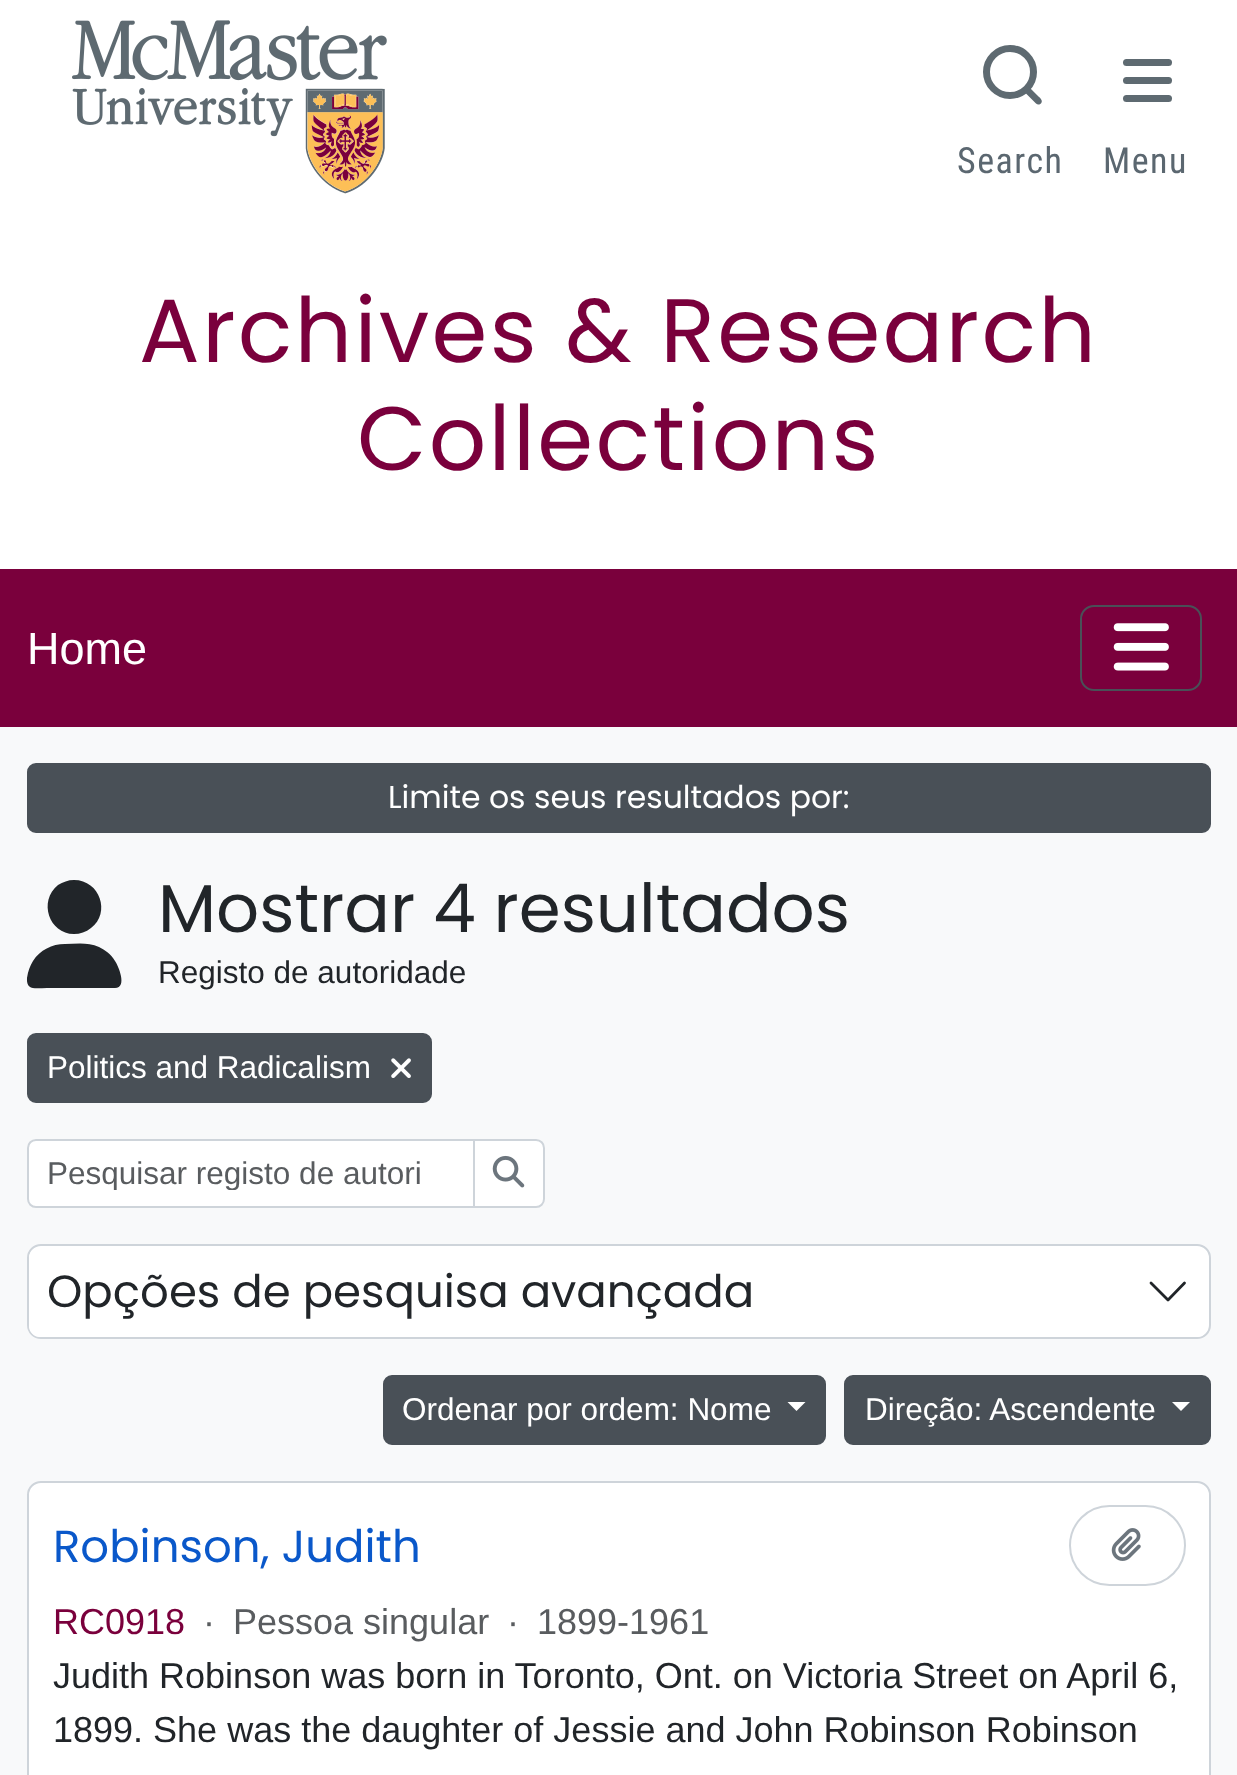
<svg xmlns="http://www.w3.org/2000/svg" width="1237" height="1775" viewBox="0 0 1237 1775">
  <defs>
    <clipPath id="clip1"><rect x="47" y="1154" width="376" height="36"/></clipPath>
  </defs>
  <rect width="100%" height="100%" fill="rgb(248,249,250)"/>
  <rect x="0" y="0" width="1237" height="569" fill="rgb(255,255,255)"/>
  <circle cx="1010" cy="72" r="23.5" fill="none" stroke="rgb(94,106,113)" stroke-width="7"/>
  <path d="M1029.5 87.5L1037 95C1038.5 96.5 1040.5 98 1041.5 100C1043 103.5 1038.5 106 1036 103.5L1024.5 92C1022 88.5 1027 85 1029.5 87.5Z" fill="rgb(94,106,113)"/>
  <text x="957" y="173" font-family="Roboto Condensed" font-size="36" letter-spacing="1.5" fill="rgb(91,103,112)">Search</text>
  <rect x="1123" y="77" width="49" height="7" rx="3.5" fill="rgb(94,106,113)"/>
  <rect x="1123" y="59" width="49" height="7" rx="3.5" fill="rgb(94,106,113)"/>
  <rect x="1123" y="95" width="49" height="7" rx="3.5" fill="rgb(94,106,113)"/>
  <text x="1103" y="173" font-family="Roboto Condensed" font-size="36" letter-spacing="1.5" fill="rgb(91,103,112)">Menu</text>
  <image x="72" y="20" width="315" height="174" href="pic1.png"/>
  <g font-family="Poppins" font-size="90" letter-spacing="2.25" fill="rgb(122,0,60)">
    <text x="139" y="362">Archives &amp; Research</text>
    <text x="357" y="470">Collections</text>
  </g>
  <rect x="0" y="569" width="1237" height="158" fill="rgb(122,0,60)"/>
  <text x="27" y="664" font-family="Liberation Sans" font-size="45" fill="rgb(255,255,255)">Home</text>
  <rect x="1081" y="606" width="120" height="84" rx="13" fill="none" stroke="rgb(73,80,87)" stroke-width="2"/>
  <image x="1113" y="623" width="56" height="48" href="pic2.png"/>
  <rect x="28" y="764" width="1182" height="68" rx="8" fill="rgb(73,80,87)" stroke="rgb(73,80,87)" stroke-width="2"/>
  <text x="388" y="808" font-family="Poppins" font-size="31.5" fill="rgb(255,255,255)">Limite os seus resultados por:</text>
  <path d="M74 934C80 934 86 932 91 928C111 913 100 880 74 880C68 880 63 882 58 885C38 901 49 934 74 934ZM65 944C52 944 40 950 33 961C30 966 28 971 27 978C26 991 36 988 47 988H115C128 988 118 965 115 961C111 954 105 950 99 947C88 942 76 944 65 944Z" fill="rgb(33,37,41)"/>
  <text x="158" y="932" font-family="Poppins" font-size="67.5" fill="rgb(33,37,41)">Mostrar 4 resultados</text>
  <text x="158" y="983" font-family="Liberation Sans" font-size="31.5" fill="rgb(33,37,41)">Registo de autoridade</text>
  <rect x="28" y="1034" width="403" height="68" rx="8" fill="rgb(73,80,87)" stroke="rgb(73,80,87)" stroke-width="2"/>
  <text x="47" y="1078" font-family="Liberation Sans" font-size="31.5" fill="rgb(255,255,255)">Politics and Radicalism</text>
  <image x="391" y="1058" width="20" height="20" href="pic3.png"/>
  <path d="M36 1140H474V1207H36C31.5 1207 28 1203.5 28 1199V1148C28 1143.5 31.5 1140 36 1140Z" fill="rgb(255,255,255)" stroke="rgb(206,212,218)" stroke-width="2"/>
  <g clip-path="url(#clip1)">
    <text x="47" y="1184" font-family="Liberation Sans" font-size="31.5" fill="rgb(89,92,95)">Pesquisar registo de autori</text>
  </g>
  <path d="M474 1140H536C540.5 1140 544 1143.5 544 1148V1199C544 1203.5 540.5 1207 536 1207H474Z" fill="rgb(255,255,255)" stroke="rgb(206,212,218)" stroke-width="2"/>
  <image x="492" y="1155" width="33" height="33" href="pic4.png"/>
  <rect x="28" y="1245" width="1182" height="93" rx="13" fill="rgb(255,255,255)" stroke="rgb(206,212,218)" stroke-width="2"/>
  <rect x="29" y="1247" width="1179" height="90" rx="11" fill="rgb(255,255,255)"/>
  <text x="47" y="1307" font-family="Poppins" font-size="45" fill="rgb(33,37,41)">Opções de pesquisa avançada</text>
  <path d="M1151 1283L1168 1300L1184.5 1283" fill="none" stroke="rgb(33,37,41)" stroke-width="2.8" stroke-linecap="round" stroke-linejoin="round"/>
  <rect x="384" y="1376" width="441" height="68" rx="8" fill="rgb(73,80,87)" stroke="rgb(73,80,87)" stroke-width="2"/>
  <text x="402" y="1420" font-family="Liberation Sans" font-size="31.5" fill="rgb(255,255,255)">Ordenar por ordem: Nome</text>
  <path d="M787.5 1402H805.5L796.5 1411Z" fill="rgb(255,255,255)"/>
  <rect x="845" y="1376" width="365" height="68" rx="8" fill="rgb(73,80,87)" stroke="rgb(73,80,87)" stroke-width="2"/>
  <text x="865" y="1420" font-family="Liberation Sans" font-size="31.5" fill="rgb(255,255,255)">Direção: Ascendente</text>
  <path d="M1172 1402H1190L1181 1411Z" fill="rgb(255,255,255)"/>
  <rect x="28" y="1482" width="1182" height="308" rx="13" fill="rgb(255,255,255)" stroke="rgb(206,212,218)" stroke-width="2"/>
  <text x="53" y="1562" font-family="Poppins" font-size="45" fill="rgb(10,88,202)">Robinson, Judith</text>
  <rect x="1070" y="1506" width="115" height="79" rx="39.5" fill="none" stroke="rgb(206,212,218)" stroke-width="2"/>
  <image x="1111" y="1528" width="30" height="33" href="pic5.png"/>
  <text x="53" y="1634" font-family="Liberation Sans" font-size="36" fill="rgb(122,0,60)">RC0918</text>
  <g font-family="Liberation Sans" font-size="36" fill="rgb(89,92,95)">
    <text x="203" y="1634">·</text>
    <text x="233" y="1634">Pessoa singular</text>
    <text x="507" y="1634">·</text>
    <text x="537" y="1634">1899-1961</text>
  </g>
  <g font-family="Liberation Sans" font-size="36" fill="rgb(33,37,41)">
    <text>
      <tspan x="53" y="1688">Judith Robinson was born in Toronto, Ont. on Victoria Street on April 6,</tspan>
      <tspan x="53" y="1742">1899. She was the daughter of Jessie and John Robinson Robinson</tspan>
    </text>
  </g>
</svg>
